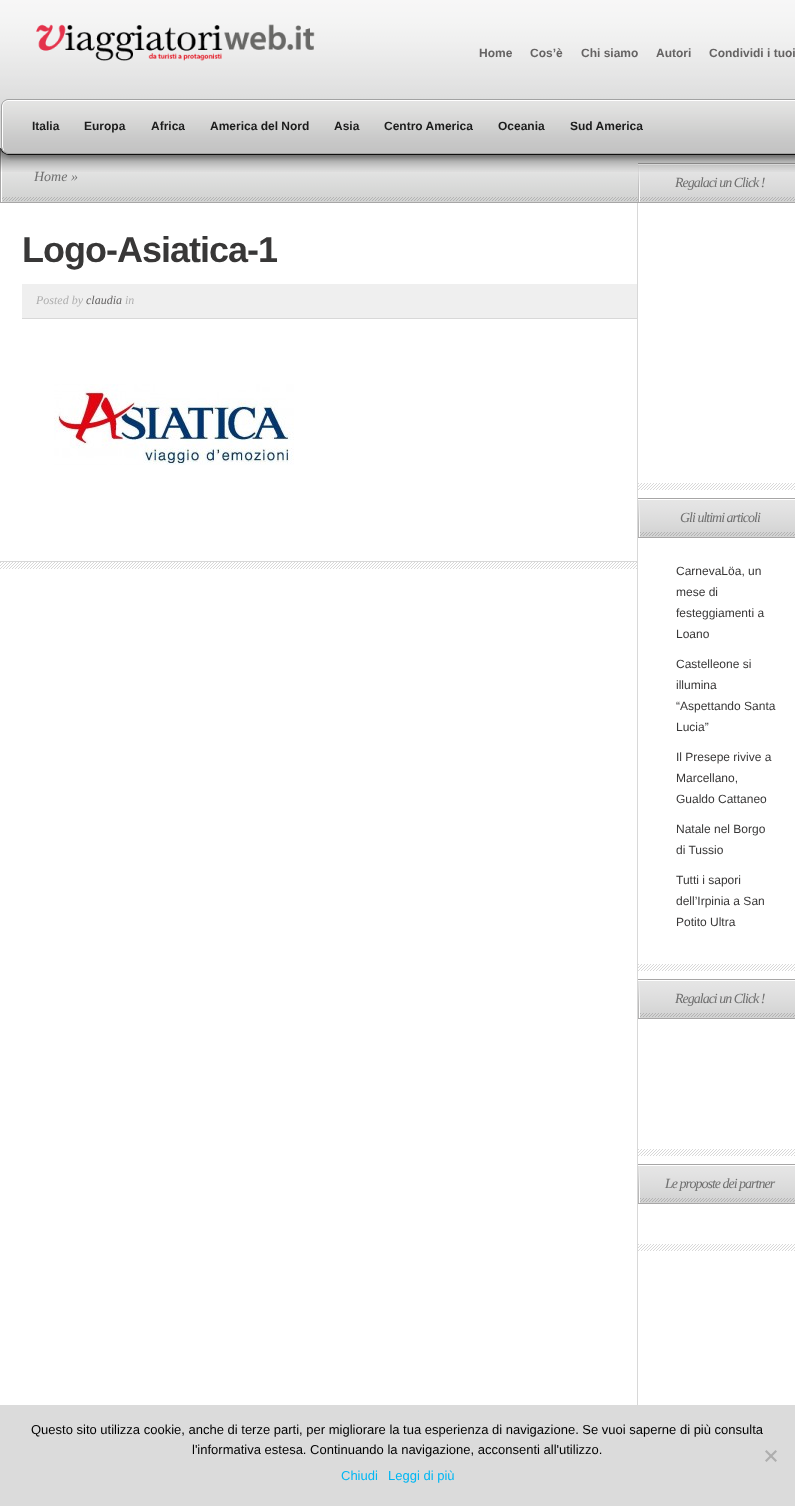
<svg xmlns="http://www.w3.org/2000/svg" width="795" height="1506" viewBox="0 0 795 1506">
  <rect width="100%" height="100%" fill="rgb(214,214,214)"/>
  <image x="0" y="0" width="795" height="111" href="pic1.png"/>
  <image x="36" y="24" width="279" height="37" href="pic2.png"/>
  <g font-family="Liberation Sans" font-size="12" font-weight="bold" fill="rgb(101,99,99)">
    <text x="479" y="57">Home</text>
    <text x="530" y="57">Cos’è</text>
    <text x="581" y="57">Chi siamo</text>
    <text x="656" y="57">Autori</text>
    <text x="709" y="57">Condividi i tuoi</text>
  </g>
  <image x="0" y="152" width="795" height="51" href="pic5.png"/>
  <image x="0" y="148" width="2" height="54" href="pic7.png"/>
  <text x="34" y="181" font-family="Liberation Serif" font-size="14" font-style="italic" fill="rgb(111,111,111)">Home »</text>
  <image x="638" y="163" width="2" height="39" href="pic9.png"/>
  <image x="640" y="163" width="155" height="38" href="pic10.png"/>
  <image x="0" y="148" width="795" height="24" href="pic6.png"/>
  <image x="0" y="99" width="10" height="61" href="pic3.png"/>
  <image x="10" y="99" width="785" height="62" href="pic4.png"/>
  <g font-family="Liberation Sans" font-size="12" font-weight="bold" fill="rgb(28,28,28)">
    <text x="32" y="130">Italia</text>
    <text x="84" y="130">Europa</text>
    <text x="151" y="130">Africa</text>
    <text x="210" y="130">America del Nord</text>
    <text x="334" y="130">Asia</text>
    <text x="384" y="130">Centro America</text>
    <text x="498" y="130">Oceania</text>
    <text x="570" y="130">Sud America</text>
  </g>
  <rect x="0" y="203" width="795" height="1202" fill="rgb(255,255,255)"/>
  <rect x="637" y="203" width="1" height="1202" fill="rgb(216,216,216)"/>
  <image x="638" y="483" width="157" height="7" href="pic8.png"/>
  <text x="675" y="187" font-family="Liberation Serif" font-size="14" font-style="italic" letter-spacing="-1" fill="rgb(111,111,111)">Regalaci un Click !</text>
  <image x="638" y="964" width="157" height="7" href="pic8.png"/>
  <image x="638" y="498" width="2" height="40" href="pic11.png"/>
  <image x="640" y="498" width="155" height="40" href="pic12.png"/>
  <text x="680" y="522" font-family="Liberation Serif" font-size="14" font-style="italic" letter-spacing="-1" fill="rgb(111,111,111)">Gli ultimi articoli</text>
  <g font-family="Liberation Sans" font-size="12" fill="rgb(56,55,55)">
    <text>
      <tspan x="676" y="575">CarnevaLöa, un</tspan>
      <tspan x="676" y="596">mese di</tspan>
      <tspan x="676" y="617">festeggiamenti a</tspan>
      <tspan x="676" y="638">Loano</tspan>
    </text>
    <text>
      <tspan x="676" y="668">Castelleone si</tspan>
      <tspan x="676" y="689">illumina</tspan>
      <tspan x="676" y="710">“Aspettando Santa</tspan>
      <tspan x="676" y="731">Lucia”</tspan>
    </text>
    <text>
      <tspan x="676" y="761">Il Presepe rivive a</tspan>
      <tspan x="676" y="782">Marcellano,</tspan>
      <tspan x="676" y="803">Gualdo Cattaneo</tspan>
    </text>
    <text>
      <tspan x="676" y="833">Natale nel Borgo</tspan>
      <tspan x="676" y="854">di Tussio</tspan>
    </text>
    <text>
      <tspan x="676" y="884">Tutti i sapori</tspan>
      <tspan x="676" y="905">dell’Irpinia a San</tspan>
      <tspan x="676" y="926">Potito Ultra</tspan>
    </text>
  </g>
  <image x="638" y="1149" width="157" height="7" href="pic8.png"/>
  <image x="638" y="979" width="2" height="40" href="pic11.png"/>
  <image x="640" y="979" width="155" height="40" href="pic12.png"/>
  <text x="675" y="1003" font-family="Liberation Serif" font-size="14" font-style="italic" letter-spacing="-1" fill="rgb(111,111,111)">Regalaci un Click !</text>
  <image x="638" y="1244" width="157" height="7" href="pic8.png"/>
  <image x="638" y="1164" width="2" height="40" href="pic11.png"/>
  <image x="640" y="1164" width="155" height="40" href="pic12.png"/>
  <text x="665" y="1188" font-family="Liberation Serif" font-size="14" font-style="italic" letter-spacing="-1" fill="rgb(111,111,111)">Le proposte dei partner</text>
  <image x="0" y="561" width="637" height="8" href="pic13.png"/>
  <text x="22" y="262" font-family="Liberation Sans" font-size="36" font-weight="bold" letter-spacing="-1" fill="rgb(56,55,55)">Logo-Asiatica-1</text>
  <rect x="22" y="284" width="615" height="34" fill="rgb(239,239,239)"/>
  <rect x="22" y="318" width="615" height="1" fill="rgb(216,216,216)"/>
  <text x="36" y="304" font-family="Liberation Serif" font-size="12" font-style="italic" fill="rgb(175,175,175)">Posted by</text>
  <text x="86" y="304" font-family="Liberation Serif" font-size="12" font-style="italic" fill="rgb(101,99,99)">claudia</text>
  <text x="125" y="304" font-family="Liberation Serif" font-size="12" font-style="italic" fill="rgb(175,175,175)">in</text>
  <image x="54" y="384" width="240" height="81" href="pic14.png"/>
  <rect x="0" y="1405" width="795" height="101" fill="rgb(219,219,219)"/>
  <g font-family="Liberation Sans" font-size="13" fill="rgb(0,0,0)">
    <text x="31" y="1434">Questo sito utilizza cookie, anche di terze parti, per migliorare la tua esperienza di navigazione. Se vuoi saperne di più consulta</text>
    <text x="192" y="1454">l'informativa estesa. Continuando la navigazione, acconsenti all'utilizzo.</text>
  </g>
  <path d="M775.5 1450L777 1451.5L766.5 1462L765 1460.5Z" fill="rgb(174,174,174)"/>
  <path d="M765 1451.5L766.5 1450L777 1460.5L775.5 1462Z" fill="rgb(174,174,174)"/>
  <g font-family="Liberation Sans" font-size="13" fill="rgb(0,183,243)">
    <text x="341" y="1480">Chiudi</text>
    <text x="388" y="1480">Leggi di più</text>
  </g>
</svg>
